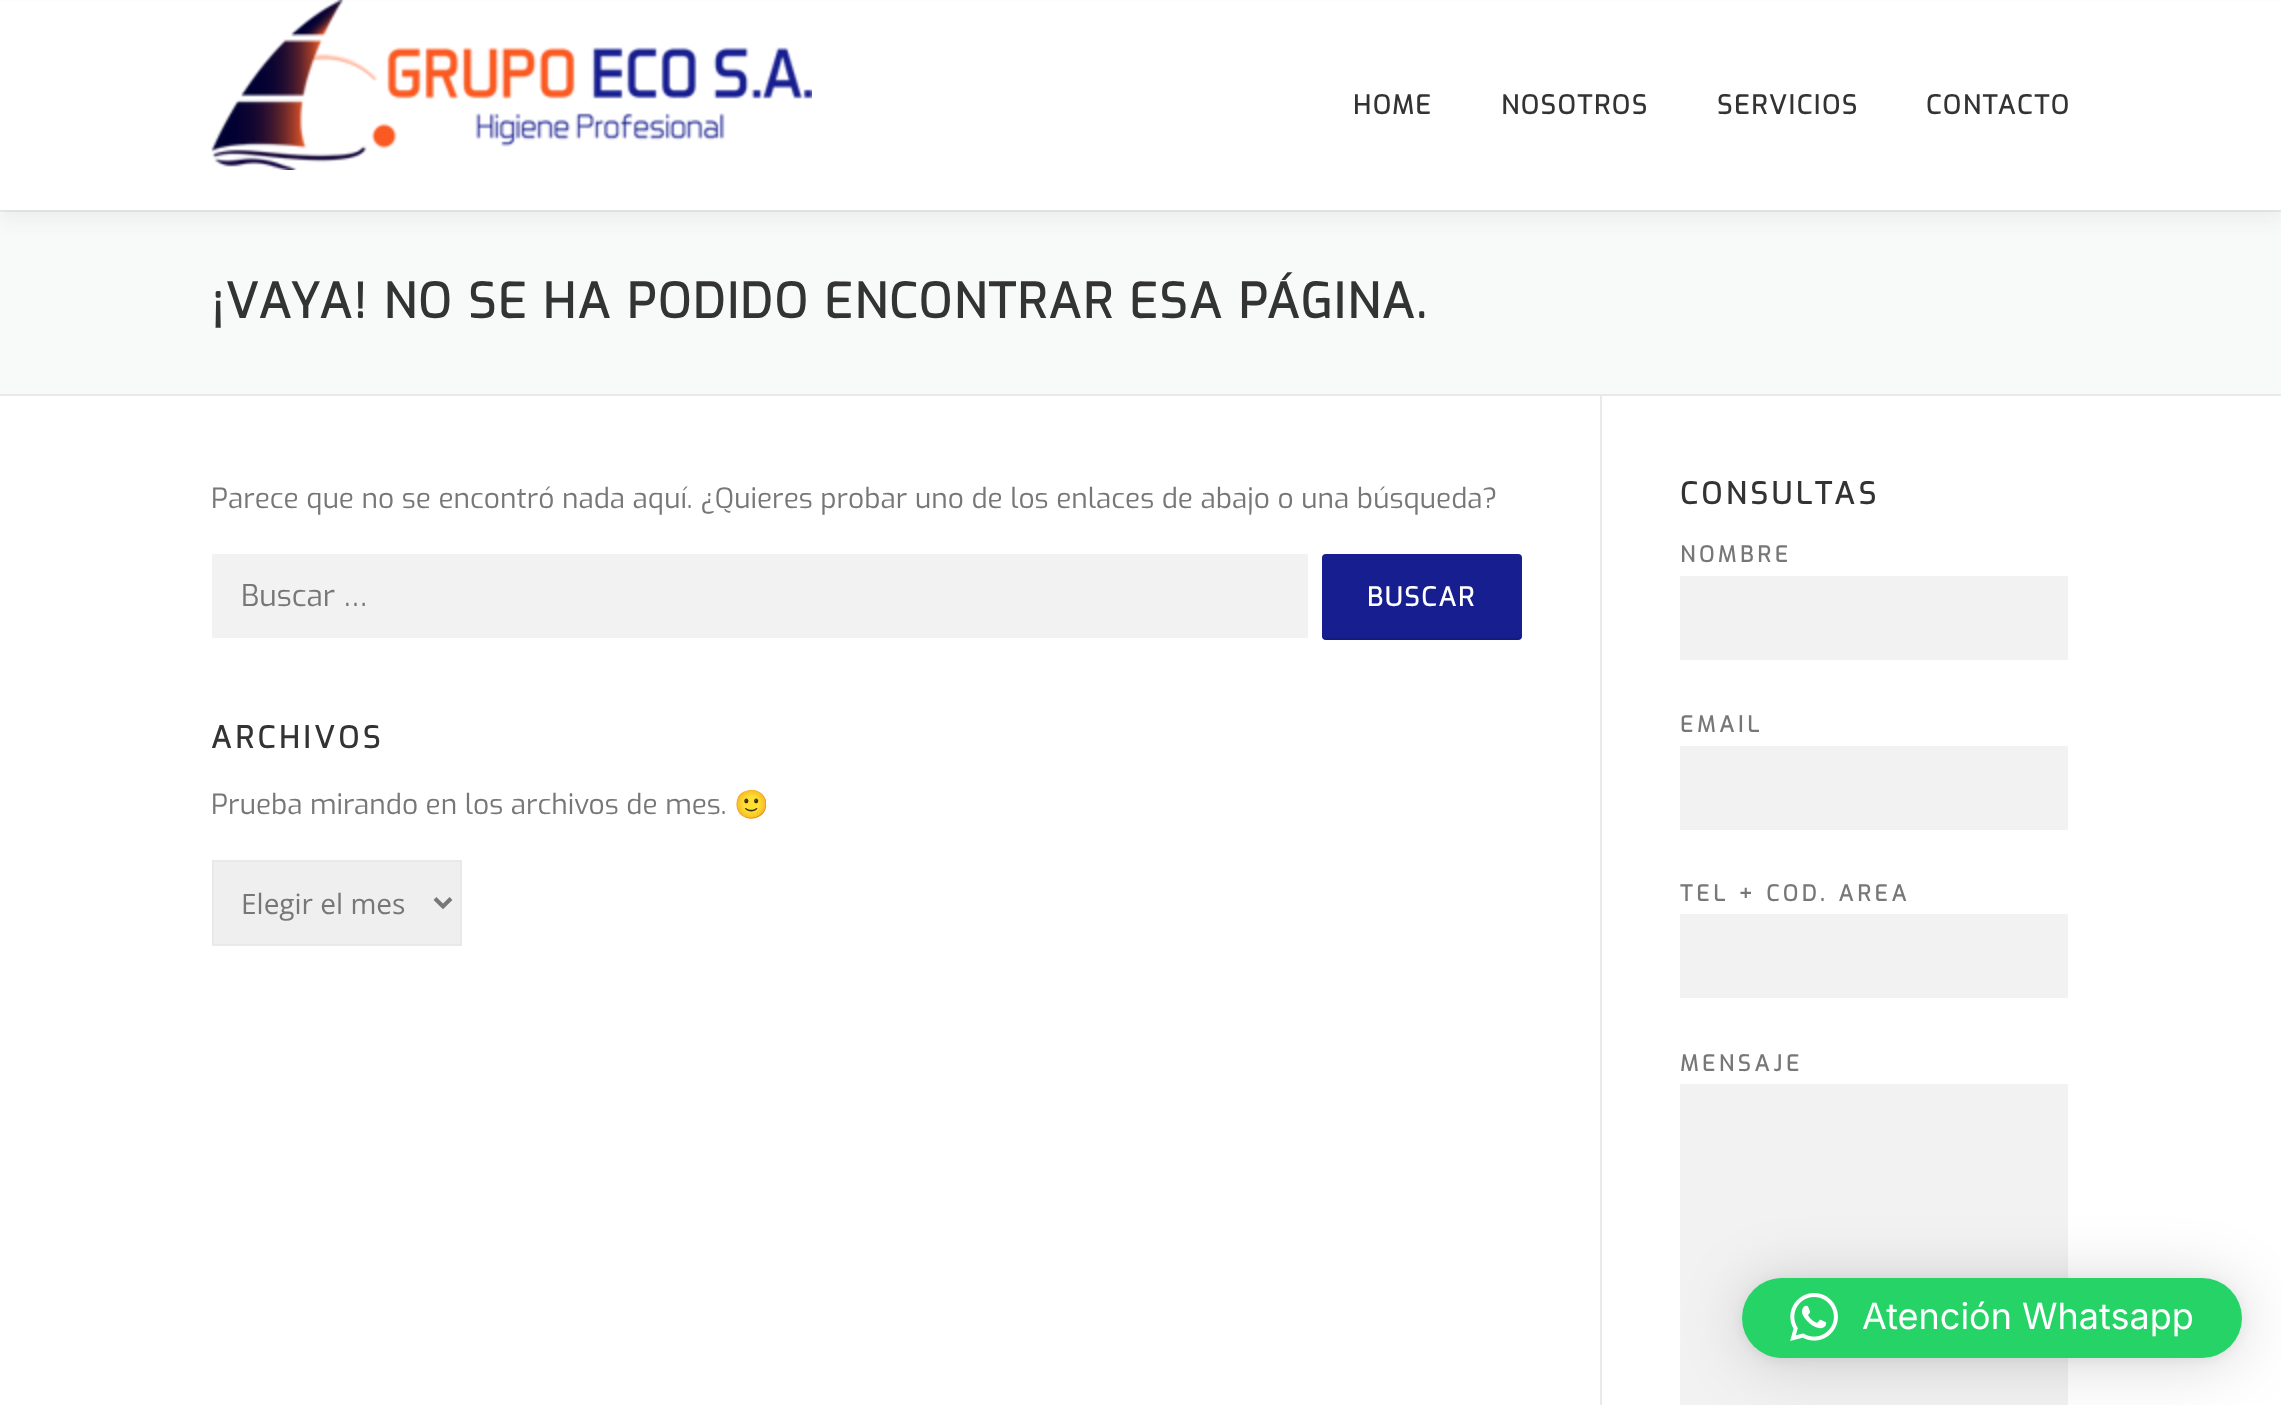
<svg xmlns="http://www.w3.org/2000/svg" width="2281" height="1405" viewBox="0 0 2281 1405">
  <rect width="100%" height="100%" fill="rgb(255,255,255)"/>
  <rect x="0" y="212" width="2281" height="182" fill="rgb(248,249,249)"/>
  <rect x="0" y="210" width="2281" height="2" fill="rgb(233,233,233)"/>
  <rect x="0" y="10" width="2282" height="210" fill="rgba(50,50,50,0.06)" filter="blur(10px)"/>
  <rect x="0" y="2" width="2281" height="208" fill="rgb(255,255,255)"/>
  <image x="211" y="0" width="601" height="170" href="pic1.png"/>
  <g font-family="Exo" font-size="26" font-weight="bold" letter-spacing="2" fill="rgb(51,51,51)">
    <text x="1353" y="114">HOME</text>
    <text x="1501" y="114">NOSOTROS</text>
    <text x="1717" y="114">SERVICIOS</text>
    <text x="1926" y="114">CONTACTO</text>
  </g>
  <rect x="0" y="394" width="2281" height="2" fill="rgb(233,233,233)"/>
  <text x="211" y="318" font-family="Exo" font-size="48" font-weight="bold" letter-spacing="2" fill="rgb(51,51,51)">¡VAYA! NO SE HA PODIDO ENCONTRAR ESA PÁGINA.</text>
  <text x="211" y="508" font-family="Exo" font-size="28" fill="rgb(119,119,119)">Parece que no se encontró nada aquí. ¿Quieres probar uno de los enlaces de abajo o una búsqueda?</text>
  <rect x="212" y="554" width="1096" height="84" fill="rgb(242,242,242)"/>
  <text x="241" y="606" font-family="Exo" font-size="30" fill="rgb(119,119,119)">Buscar …</text>
  <rect x="1322" y="554" width="200" height="86" rx="4" fill="rgb(23,30,143)"/>
  <path d="M1322 634V636C1322 638 1324 640 1326 640H1518C1520 640 1522 638 1522 636V634C1522 636 1520 638 1518 638H1326C1324 638 1322 636 1322 634Z" fill="rgba(0,0,0,0.1)"/>
  <text x="1367" y="606" font-family="Exo" font-size="26" font-weight="bold" letter-spacing="2" fill="rgb(255,255,255)">BUSCAR</text>
  <text x="211" y="748" font-family="Exo" font-size="30" font-weight="bold" letter-spacing="4" fill="rgb(51,51,51)">ARCHIVOS</text>
  <text x="211" y="814" font-family="Exo" font-size="28" fill="rgb(119,119,119)">Prueba mirando en los archivos de mes.</text>
  <text x="734" y="814" font-family="Noto Color Emoji" font-size="28" fill="rgb(119,119,119)">🙂</text>
  <rect x="213" y="861" width="248" height="84" fill="rgb(239,239,239)" stroke="rgb(233,233,233)" stroke-width="2"/>
  <path d="M435 898.5L443 906.5L451 898.5" fill="none" stroke="rgb(119,119,119)" stroke-width="4"/>
  <text x="241" y="914" font-family="Open Sans" font-size="28" fill="rgb(119,119,119)">Elegir el mes</text>
  <rect x="1600" y="396" width="2" height="1009" fill="rgb(233,233,233)"/>
  <text x="1680" y="504" font-family="Exo" font-size="30" font-weight="bold" letter-spacing="4" fill="rgb(51,51,51)">CONSULTAS</text>
  <text x="1680" y="562" font-family="Exo" font-size="22" font-weight="bold" letter-spacing="4" fill="rgb(119,119,119)">NOMBRE</text>
  <rect x="1680" y="576" width="388" height="84" fill="rgb(242,242,242)"/>
  <text x="1680" y="732" font-family="Exo" font-size="22" font-weight="bold" letter-spacing="4" fill="rgb(119,119,119)">EMAIL</text>
  <rect x="1680" y="746" width="388" height="84" fill="rgb(242,242,242)"/>
  <text x="1680" y="901" font-family="Exo" font-size="22" font-weight="bold" letter-spacing="4" fill="rgb(119,119,119)">TEL + COD. AREA</text>
  <rect x="1680" y="914" width="388" height="84" fill="rgb(242,242,242)"/>
  <text x="1680" y="1071" font-family="Exo" font-size="22" font-weight="bold" letter-spacing="4" fill="rgb(119,119,119)">MENSAJE</text>
  <rect x="1680" y="1084" width="388" height="321" fill="rgb(242,242,242)"/>
  <rect x="1742" y="1282" width="500" height="80" rx="40" fill="rgba(0,0,0,0.16)" filter="blur(32px)"/>
  <rect x="1742" y="1280" width="500" height="80" rx="40" fill="rgba(0,0,0,0.06)" filter="blur(6px)"/>
  <rect x="1742" y="1278" width="500" height="80" rx="40" fill="rgb(37,211,102)"/>
  <image x="1790" y="1293" width="48" height="48" href="pic2.png"/>
  <text x="1862" y="1329" font-family="Inter" font-size="36" fill="rgb(255,255,255)">Atención Whatsapp</text>
</svg>
